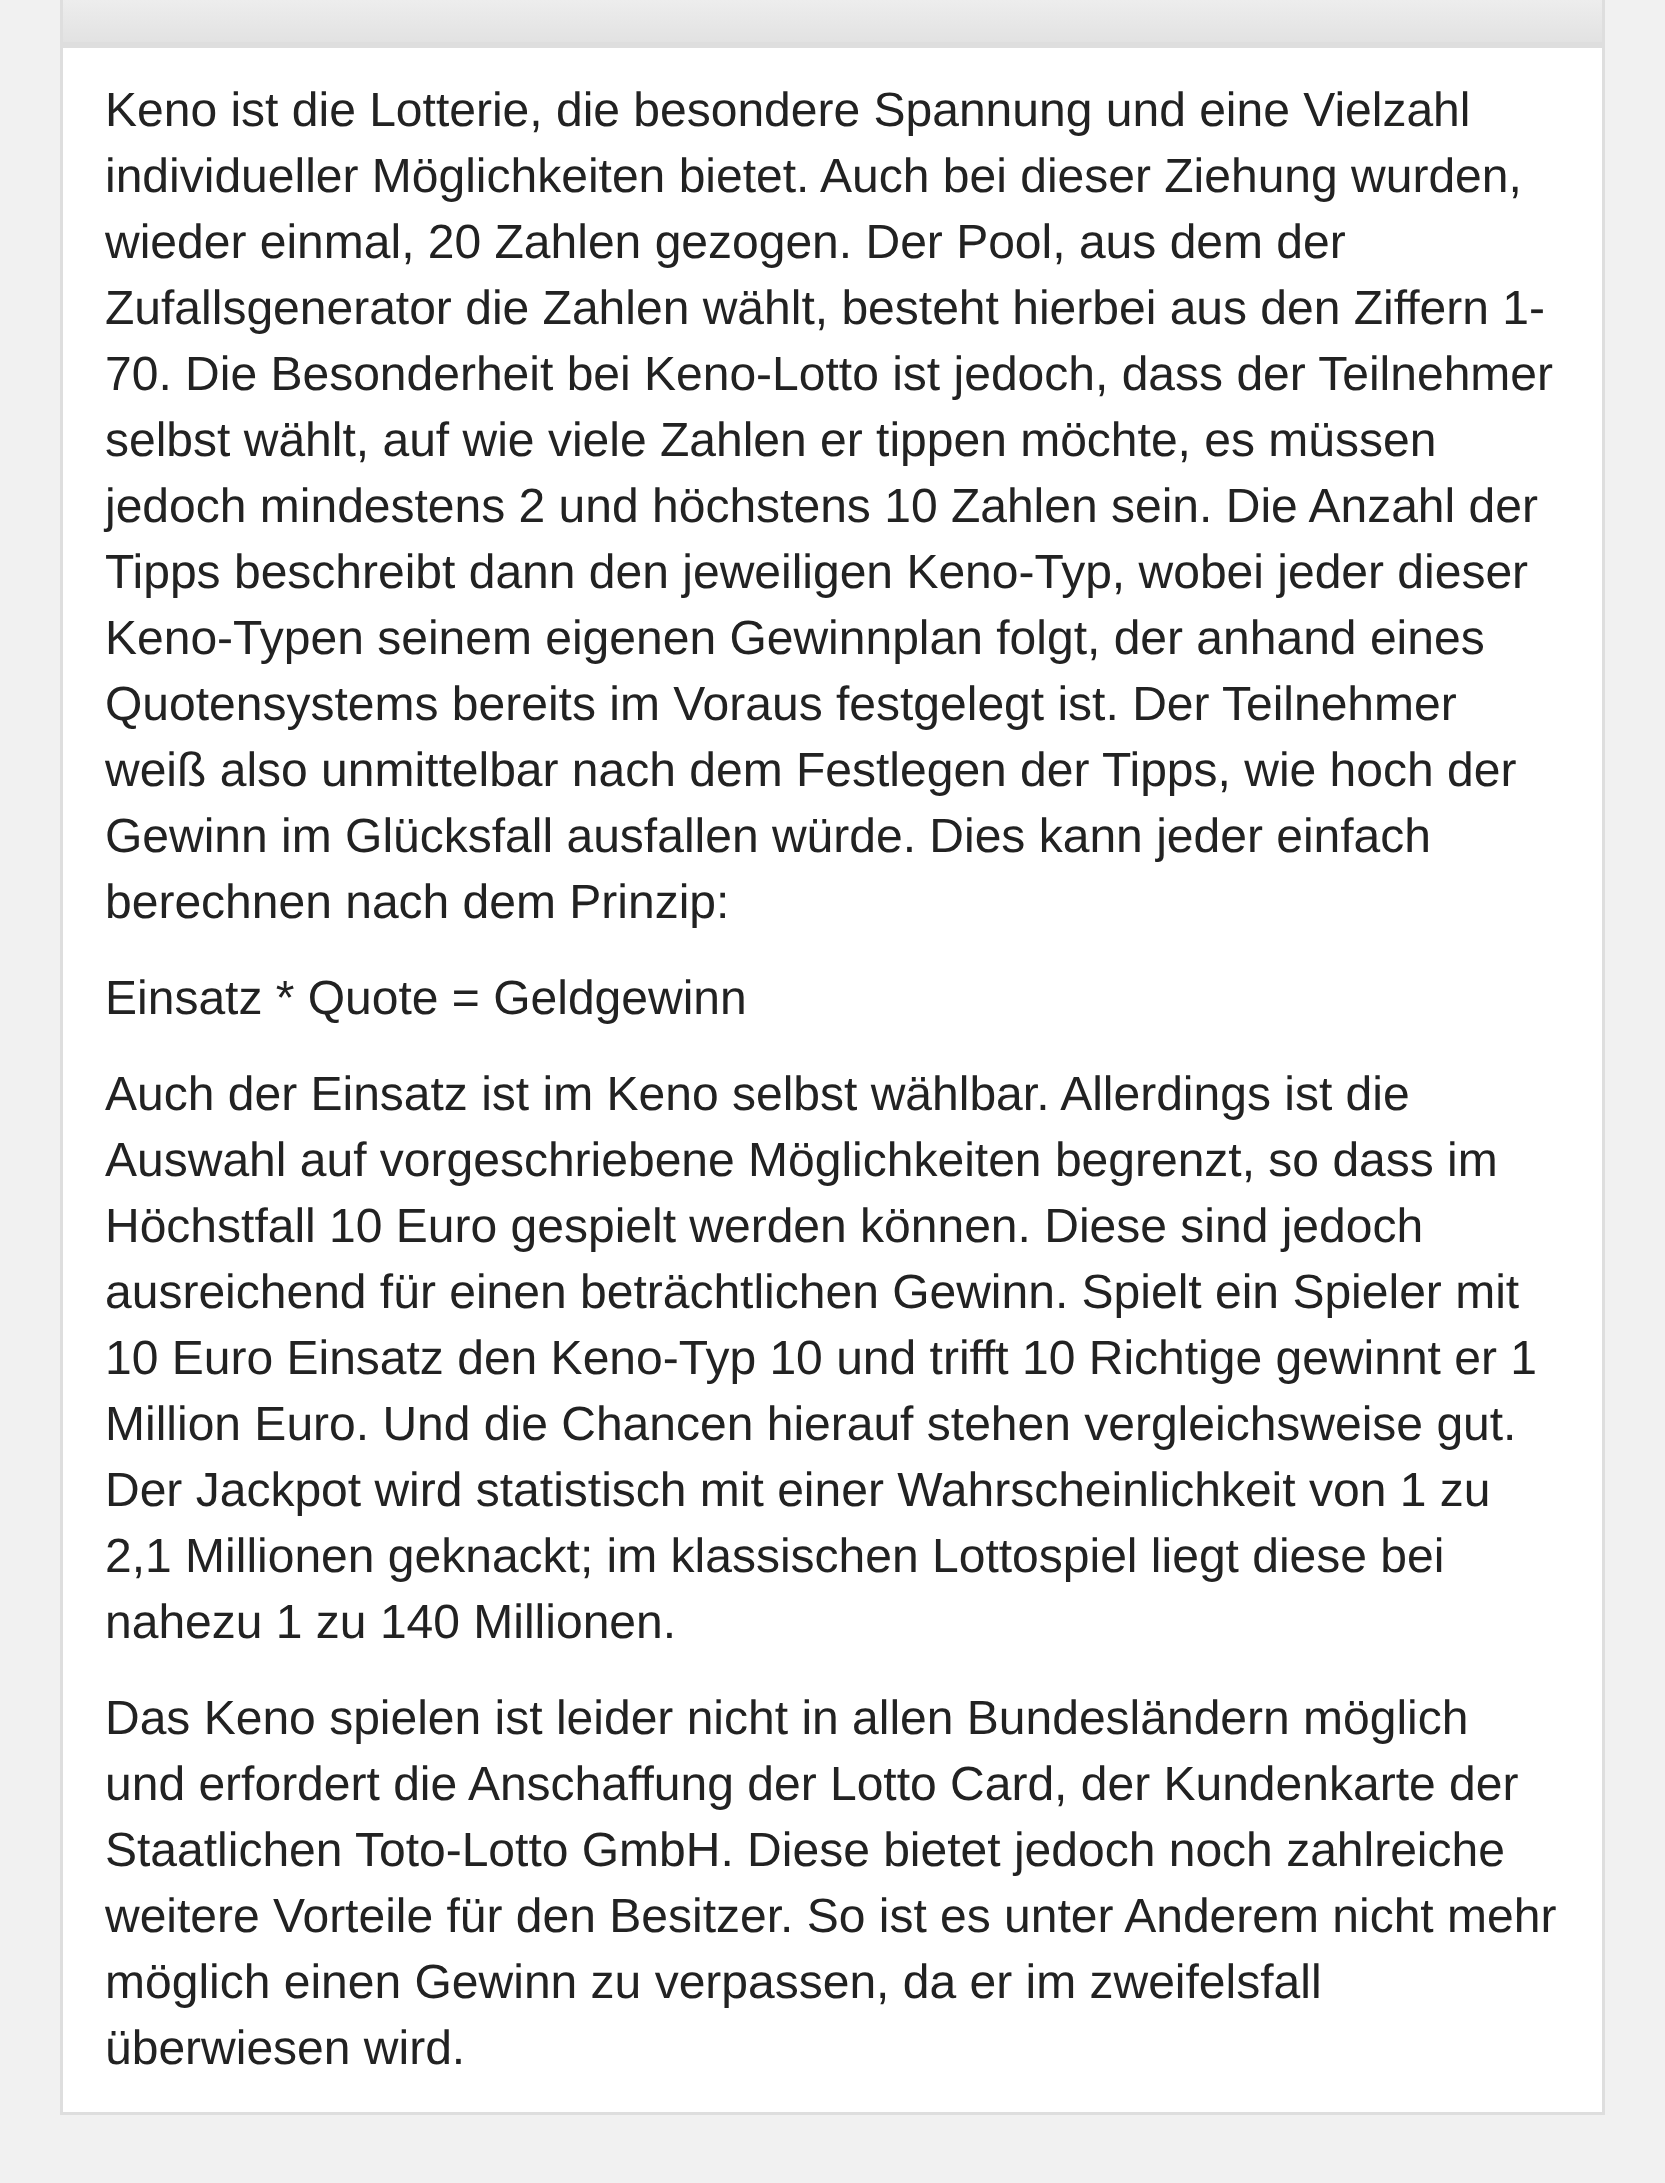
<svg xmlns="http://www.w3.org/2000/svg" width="1665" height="2183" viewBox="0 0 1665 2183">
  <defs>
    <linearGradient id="g1" gradientUnits="userSpaceOnUse" x1="833" y1="-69" x2="833" y2="42"><stop offset="0" stop-color="rgb(255,255,255)"/><stop offset="1" stop-color="rgb(226,226,226)"/></linearGradient>
  </defs>
  <rect width="100%" height="100%" fill="rgb(241,241,241)"/>
  <rect x="63" y="0" width="1539" height="42" fill="url(#g1)"/>
  <rect x="61.5" y="-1.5" width="1542" height="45" fill="none" stroke="rgb(222,222,222)" stroke-width="3"/>
  <rect x="61.5" y="46.5" width="1542" height="2067" fill="rgb(255,255,255)" stroke="rgb(222,222,222)" stroke-width="3"/>
  <g font-family="Liberation Sans" font-size="48" fill="rgb(34,34,34)">
    <text>
      <tspan x="105" y="126">Keno ist die Lotterie, die besondere Spannung und eine Vielzahl</tspan>
      <tspan x="105" y="192">individueller Möglichkeiten bietet. Auch bei dieser Ziehung wurden,</tspan>
      <tspan x="105" y="258">wieder einmal, 20 Zahlen gezogen. Der Pool, aus dem der</tspan>
      <tspan x="105" y="324">Zufallsgenerator die Zahlen wählt, besteht hierbei aus den Ziffern 1-</tspan>
      <tspan x="105" y="390">70. Die Besonderheit bei Keno-Lotto ist jedoch, dass der Teilnehmer</tspan>
      <tspan x="105" y="456">selbst wählt, auf wie viele Zahlen er tippen möchte, es müssen</tspan>
      <tspan x="105" y="522">jedoch mindestens 2 und höchstens 10 Zahlen sein. Die Anzahl der</tspan>
      <tspan x="105" y="588">Tipps beschreibt dann den jeweiligen Keno-Typ, wobei jeder dieser</tspan>
      <tspan x="105" y="654">Keno-Typen seinem eigenen Gewinnplan folgt, der anhand eines</tspan>
      <tspan x="105" y="720">Quotensystems bereits im Voraus festgelegt ist. Der Teilnehmer</tspan>
      <tspan x="105" y="786">weiß also unmittelbar nach dem Festlegen der Tipps, wie hoch der</tspan>
      <tspan x="105" y="852">Gewinn im Glücksfall ausfallen würde. Dies kann jeder einfach</tspan>
      <tspan x="105" y="918">berechnen nach dem Prinzip:</tspan>
    </text>
    <text x="105" y="1014">Einsatz * Quote = Geldgewinn</text>
    <text>
      <tspan x="105" y="1110">Auch der Einsatz ist im Keno selbst wählbar. Allerdings ist die</tspan>
      <tspan x="105" y="1176">Auswahl auf vorgeschriebene Möglichkeiten begrenzt, so dass im</tspan>
      <tspan x="105" y="1242">Höchstfall 10 Euro gespielt werden können. Diese sind jedoch</tspan>
      <tspan x="105" y="1308">ausreichend für einen beträchtlichen Gewinn. Spielt ein Spieler mit</tspan>
      <tspan x="105" y="1374">10 Euro Einsatz den Keno-Typ 10 und trifft 10 Richtige gewinnt er 1</tspan>
      <tspan x="105" y="1440">Million Euro. Und die Chancen hierauf stehen vergleichsweise gut.</tspan>
      <tspan x="105" y="1506">Der Jackpot wird statistisch mit einer Wahrscheinlichkeit von 1 zu</tspan>
      <tspan x="105" y="1572">2,1 Millionen geknackt; im klassischen Lottospiel liegt diese bei</tspan>
      <tspan x="105" y="1638">nahezu 1 zu 140 Millionen.</tspan>
    </text>
    <text>
      <tspan x="105" y="1734">Das Keno spielen ist leider nicht in allen Bundesländern möglich</tspan>
      <tspan x="105" y="1800">und erfordert die Anschaffung der Lotto Card, der Kundenkarte der</tspan>
      <tspan x="105" y="1866">Staatlichen Toto-Lotto GmbH. Diese bietet jedoch noch zahlreiche</tspan>
      <tspan x="105" y="1932">weitere Vorteile für den Besitzer. So ist es unter Anderem nicht mehr</tspan>
      <tspan x="105" y="1998">möglich einen Gewinn zu verpassen, da er im zweifelsfall</tspan>
      <tspan x="105" y="2064">überwiesen wird.</tspan>
    </text>
  </g>
</svg>
